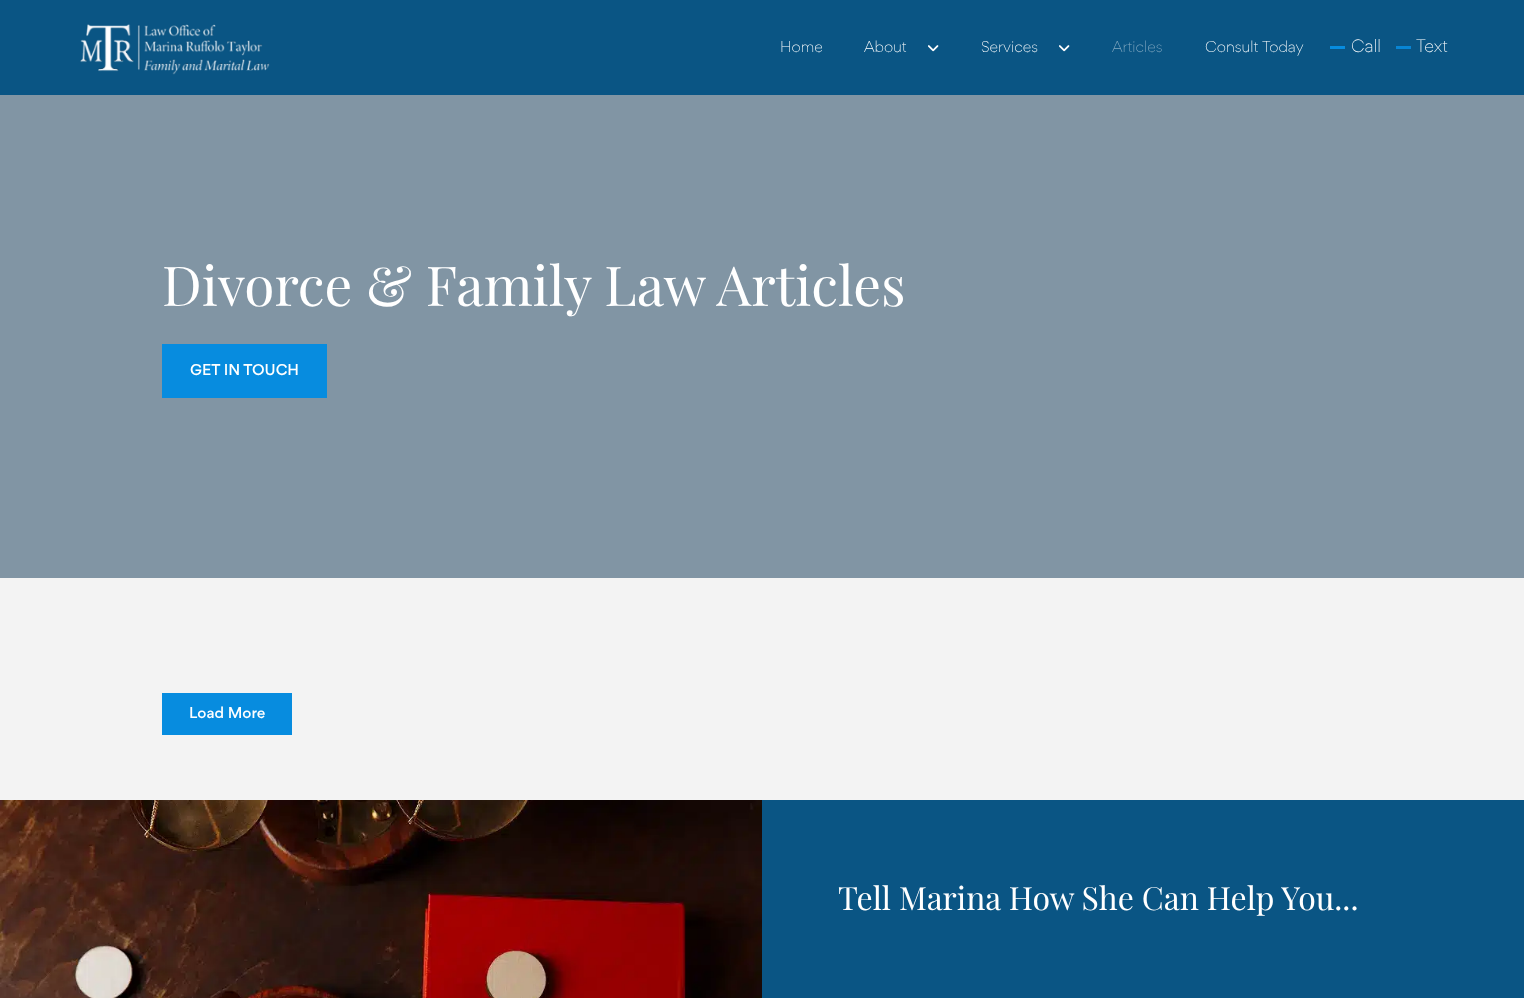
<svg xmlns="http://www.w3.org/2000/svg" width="1524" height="998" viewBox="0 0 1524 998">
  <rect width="100%" height="100%" fill="rgb(243,243,243)"/>
  <rect x="0" y="0" width="1524" height="95" fill="rgb(10,85,132)"/>
  <image x="80" y="24" width="190" height="51" href="pic1.png"/>
  <g font-family="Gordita" font-size="14" font-weight="300" fill="rgb(255,255,255)">
    <text x="780" y="52">Home</text>
    <text x="864" y="52">About</text>
  </g>
  <image x="928" y="45" width="11" height="7" href="pic2.png"/>
  <text x="981" y="52" font-family="Gordita" font-size="14" font-weight="300" fill="rgb(255,255,255)">Services</text>
  <image x="1059" y="45" width="11" height="7" href="pic2.png"/>
  <text x="1112" y="52" font-family="Gordita" font-size="14" font-weight="300" fill="rgb(133,170,194)">Articles</text>
  <text x="1205" y="52" font-family="Gordita" font-size="14" font-weight="300" fill="rgb(255,255,255)">Consult Today</text>
  <rect x="1330" y="46" width="15" height="3" fill="rgb(7,140,223)"/>
  <text x="1351" y="52" font-family="Gordita" font-size="16" font-weight="300" fill="rgb(255,255,255)">Call</text>
  <rect x="1396" y="46" width="15" height="3" fill="rgb(8,133,212)"/>
  <text x="1416" y="52" font-family="Gordita" font-size="16" font-weight="300" fill="rgb(255,255,255)">Text</text>
  <rect x="0" y="95" width="1524" height="483" fill="rgb(129,149,164)"/>
  <text x="162" y="306" font-family="Playfair Display" font-size="55" fill="rgb(255,255,255)">Divorce &amp; Family Law Articles</text>
  <rect x="162" y="344" width="165" height="54" fill="rgb(7,140,223)"/>
  <text x="190" y="375" font-family="Gordita" font-size="14" font-weight="500" fill="rgb(255,255,255)">GET IN TOUCH</text>
  <rect x="162" y="693" width="130" height="42" fill="rgb(7,140,223)"/>
  <text x="189" y="718" font-family="Gordita" font-size="14" font-weight="500" fill="rgb(255,255,255)">Load More</text>
  <image x="0" y="800" width="762" height="198" href="pic3.png"/>
  <rect x="762" y="800" width="762" height="198" fill="rgb(10,85,132)"/>
  <text x="838" y="910" font-family="Playfair Display" font-size="32" fill="rgb(255,255,255)">Tell Marina How She Can Help You...</text>
</svg>
